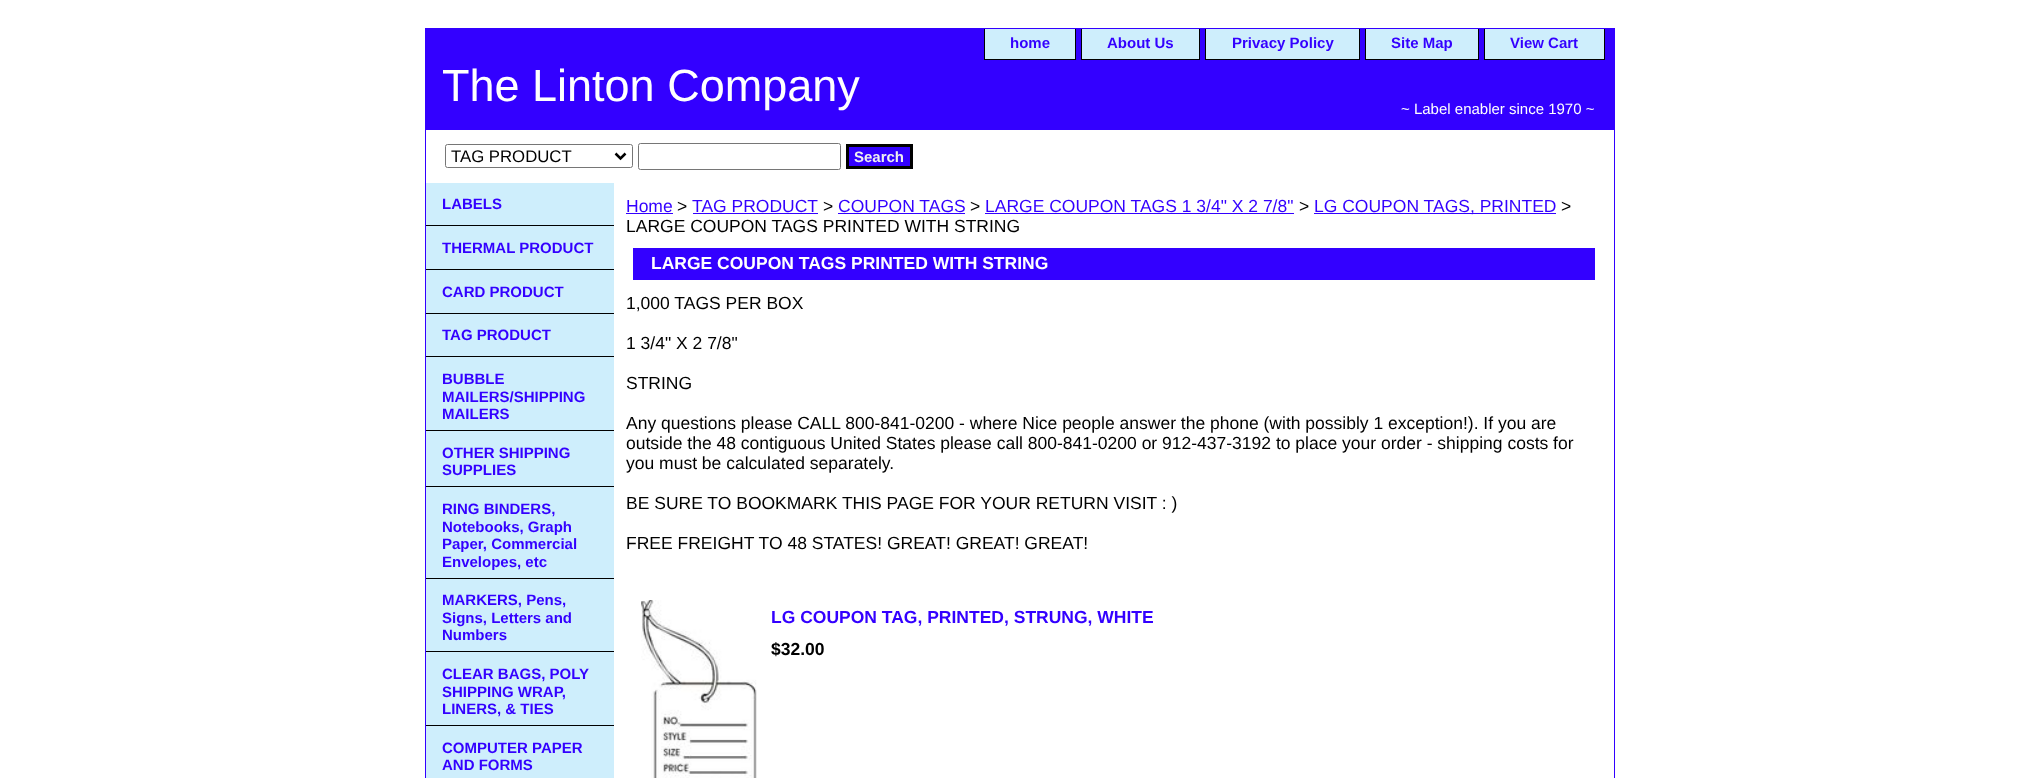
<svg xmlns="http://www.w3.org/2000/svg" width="2038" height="778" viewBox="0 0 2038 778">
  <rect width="100%" height="100%" fill="rgb(255,255,255)"/>
  <rect x="425.5" y="28.5" width="1189" height="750" fill="none" stroke="rgb(51,0,255)"/>
  <rect x="426" y="29" width="1188" height="101" fill="rgb(51,0,255)"/>
  <rect x="985" y="29" width="90" height="30" fill="rgb(206,238,252)"/>
  <rect x="1075" y="29" width="1" height="31" fill="rgb(0,0,0)"/>
  <rect x="984" y="59" width="92" height="1" fill="rgb(0,0,0)"/>
  <rect x="984" y="29" width="1" height="31" fill="rgb(0,0,0)"/>
  <text x="1010" y="48" font-family="Liberation Sans" font-size="15" font-weight="bold" fill="rgb(51,0,255)">home</text>
  <rect x="1082" y="29" width="117" height="30" fill="rgb(206,238,252)"/>
  <rect x="1199" y="29" width="1" height="31" fill="rgb(0,0,0)"/>
  <rect x="1081" y="59" width="119" height="1" fill="rgb(0,0,0)"/>
  <rect x="1081" y="29" width="1" height="31" fill="rgb(0,0,0)"/>
  <text x="1107" y="48" font-family="Liberation Sans" font-size="15" font-weight="bold" fill="rgb(51,0,255)">About Us</text>
  <rect x="1206" y="29" width="153" height="30" fill="rgb(206,238,252)"/>
  <rect x="1359" y="29" width="1" height="31" fill="rgb(0,0,0)"/>
  <rect x="1205" y="59" width="155" height="1" fill="rgb(0,0,0)"/>
  <rect x="1205" y="29" width="1" height="31" fill="rgb(0,0,0)"/>
  <text x="1232" y="48" font-family="Liberation Sans" font-size="15" font-weight="bold" fill="rgb(51,0,255)">Privacy Policy</text>
  <rect x="1366" y="29" width="112" height="30" fill="rgb(206,238,252)"/>
  <rect x="1478" y="29" width="1" height="31" fill="rgb(0,0,0)"/>
  <rect x="1365" y="59" width="114" height="1" fill="rgb(0,0,0)"/>
  <rect x="1365" y="29" width="1" height="31" fill="rgb(0,0,0)"/>
  <text x="1391" y="48" font-family="Liberation Sans" font-size="15" font-weight="bold" fill="rgb(51,0,255)">Site Map</text>
  <rect x="1485" y="29" width="119" height="30" fill="rgb(206,238,252)"/>
  <rect x="1604" y="29" width="1" height="31" fill="rgb(0,0,0)"/>
  <rect x="1484" y="59" width="121" height="1" fill="rgb(0,0,0)"/>
  <rect x="1484" y="29" width="1" height="31" fill="rgb(0,0,0)"/>
  <text x="1510" y="48" font-family="Liberation Sans" font-size="15" font-weight="bold" fill="rgb(51,0,255)">View Cart</text>
  <text x="442" y="101" font-family="Liberation Sans" font-size="45" fill="rgb(255,255,255)">The Linton Company</text>
  <text x="1401" y="114" font-family="Liberation Sans" font-size="15" fill="rgb(255,255,255)">~ Label enabler since 1970 ~</text>
  <rect x="445.5" y="144.5" width="187" height="23" rx="2" fill="none" stroke="rgb(118,118,118)"/>
  <path d="M615.5 153.5L620.5 158.5L625.5 153.5" fill="none" stroke="rgb(0,0,0)" stroke-width="2.5"/>
  <text x="451" y="162" font-family="Liberation Sans" font-size="16.75" fill="rgb(0,0,0)">TAG PRODUCT</text>
  <rect x="638.5" y="143.5" width="202" height="26" rx="2" fill="none" stroke="rgb(118,118,118)"/>
  <rect x="847.5" y="145.5" width="64" height="22" fill="rgb(51,0,255)" stroke="rgb(0,0,0)" stroke-width="3"/>
  <text x="854" y="162" font-family="Liberation Sans" font-size="15" font-weight="bold" fill="rgb(240,240,240)">Search</text>
  <rect x="426" y="183" width="188" height="595" fill="rgb(206,238,252)"/>
  <rect x="426" y="225" width="188" height="1" fill="rgb(0,0,0)"/>
  <text x="442" y="209" font-family="Liberation Sans" font-size="15" font-weight="bold" fill="rgb(51,0,255)">LABELS</text>
  <rect x="426" y="269" width="188" height="1" fill="rgb(0,0,0)"/>
  <text x="442" y="253" font-family="Liberation Sans" font-size="15" font-weight="bold" fill="rgb(51,0,255)">THERMAL PRODUCT</text>
  <rect x="426" y="313" width="188" height="1" fill="rgb(0,0,0)"/>
  <text x="442" y="297" font-family="Liberation Sans" font-size="15" font-weight="bold" fill="rgb(51,0,255)">CARD PRODUCT</text>
  <rect x="426" y="356" width="188" height="1" fill="rgb(0,0,0)"/>
  <text x="442" y="340" font-family="Liberation Sans" font-size="15" font-weight="bold" fill="rgb(51,0,255)">TAG PRODUCT</text>
  <rect x="426" y="430" width="188" height="1" fill="rgb(0,0,0)"/>
  <g font-family="Liberation Sans" font-size="15" font-weight="bold" fill="rgb(51,0,255)">
    <text>
      <tspan x="442" y="384">BUBBLE</tspan>
      <tspan x="442" y="402">MAILERS/SHIPPING</tspan>
      <tspan x="442" y="419">MAILERS</tspan>
    </text>
  </g>
  <rect x="426" y="486" width="188" height="1" fill="rgb(0,0,0)"/>
  <g font-family="Liberation Sans" font-size="15" font-weight="bold" fill="rgb(51,0,255)">
    <text>
      <tspan x="442" y="458">OTHER SHIPPING</tspan>
      <tspan x="442" y="475">SUPPLIES</tspan>
    </text>
  </g>
  <rect x="426" y="578" width="188" height="1" fill="rgb(0,0,0)"/>
  <g font-family="Liberation Sans" font-size="15" font-weight="bold" fill="rgb(51,0,255)">
    <text>
      <tspan x="442" y="514">RING BINDERS,</tspan>
      <tspan x="442" y="532">Notebooks, Graph</tspan>
      <tspan x="442" y="549">Paper, Commercial</tspan>
      <tspan x="442" y="567">Envelopes, etc</tspan>
    </text>
  </g>
  <rect x="426" y="651" width="188" height="1" fill="rgb(0,0,0)"/>
  <g font-family="Liberation Sans" font-size="15" font-weight="bold" fill="rgb(51,0,255)">
    <text>
      <tspan x="442" y="605">MARKERS, Pens,</tspan>
      <tspan x="442" y="623">Signs, Letters and</tspan>
      <tspan x="442" y="640">Numbers</tspan>
    </text>
  </g>
  <rect x="426" y="725" width="188" height="1" fill="rgb(0,0,0)"/>
  <g font-family="Liberation Sans" font-size="15" font-weight="bold" fill="rgb(51,0,255)">
    <text>
      <tspan x="442" y="679">CLEAR BAGS, POLY</tspan>
      <tspan x="442" y="697">SHIPPING WRAP,</tspan>
      <tspan x="442" y="714">LINERS, &amp; TIES</tspan>
    </text>
    <text>
      <tspan x="442" y="753">COMPUTER PAPER</tspan>
      <tspan x="442" y="770">AND FORMS</tspan>
    </text>
  </g>
  <text x="626" y="212" font-family="Liberation Sans" font-size="17.5" fill="rgb(51,0,255)">Home</text>
  <rect x="626" y="213" width="47" height="1" fill="rgb(51,0,255)"/>
  <text x="677" y="212" font-family="Liberation Sans" font-size="17.5" fill="rgb(0,0,0)">&gt;</text>
  <text x="692" y="212" font-family="Liberation Sans" font-size="17.5" fill="rgb(51,0,255)">TAG PRODUCT</text>
  <rect x="693" y="213" width="125" height="1" fill="rgb(51,0,255)"/>
  <text x="823" y="212" font-family="Liberation Sans" font-size="17.5" fill="rgb(0,0,0)">&gt;</text>
  <text x="838" y="212" font-family="Liberation Sans" font-size="17.5" fill="rgb(51,0,255)">COUPON TAGS</text>
  <rect x="838" y="213" width="127" height="1" fill="rgb(51,0,255)"/>
  <text x="970" y="212" font-family="Liberation Sans" font-size="17.5" fill="rgb(0,0,0)">&gt;</text>
  <text x="985" y="212" font-family="Liberation Sans" font-size="17.5" fill="rgb(51,0,255)">LARGE COUPON TAGS 1 3/4" X 2 7/8"</text>
  <rect x="985" y="213" width="309" height="1" fill="rgb(51,0,255)"/>
  <text x="1299" y="212" font-family="Liberation Sans" font-size="17.5" fill="rgb(0,0,0)">&gt;</text>
  <rect x="1314" y="213" width="242" height="1" fill="rgb(51,0,255)"/>
  <text x="1314" y="212" font-family="Liberation Sans" font-size="17.5" fill="rgb(51,0,255)">LG COUPON TAGS, PRINTED</text>
  <g font-family="Liberation Sans" font-size="17.5" fill="rgb(0,0,0)">
    <text x="1561" y="212">&gt;</text>
    <text x="626" y="232">LARGE COUPON TAGS PRINTED WITH STRING</text>
  </g>
  <rect x="633" y="248" width="962" height="32" fill="rgb(51,0,255)"/>
  <text x="651" y="269" font-family="Liberation Sans" font-size="17.5" font-weight="bold" fill="rgb(255,255,255)">LARGE COUPON TAGS PRINTED WITH STRING</text>
  <g font-family="Liberation Sans" font-size="17.5" fill="rgb(0,0,0)">
    <text x="626" y="309">1,000 TAGS PER BOX</text>
    <text x="626" y="349">1 3/4" X 2 7/8"</text>
    <text x="626" y="389">STRING</text>
    <text>
      <tspan x="626" y="429">Any questions please CALL 800-841-0200 - where Nice people answer the phone (with possibly 1 exception!). If you are</tspan>
      <tspan x="626" y="449">outside the 48 contiguous United States please call 800-841-0200 or 912-437-3192 to place your order - shipping costs for</tspan>
      <tspan x="626" y="469">you must be calculated separately.</tspan>
    </text>
    <text x="626" y="509">BE SURE TO BOOKMARK THIS PAGE FOR YOUR RETURN VISIT : )</text>
    <text x="626" y="549">FREE FREIGHT TO 48 STATES! GREAT! GREAT! GREAT!</text>
  </g>
  <image x="641" y="600" width="116" height="178" href="pic1.png"/>
  <text x="771" y="623" font-family="Liberation Sans" font-size="17.5" font-weight="bold" fill="rgb(51,0,255)">LG COUPON TAG, PRINTED, STRUNG, WHITE</text>
  <text x="771" y="655" font-family="Liberation Sans" font-size="17.5" font-weight="bold" fill="rgb(0,0,0)">$32.00</text>
</svg>
